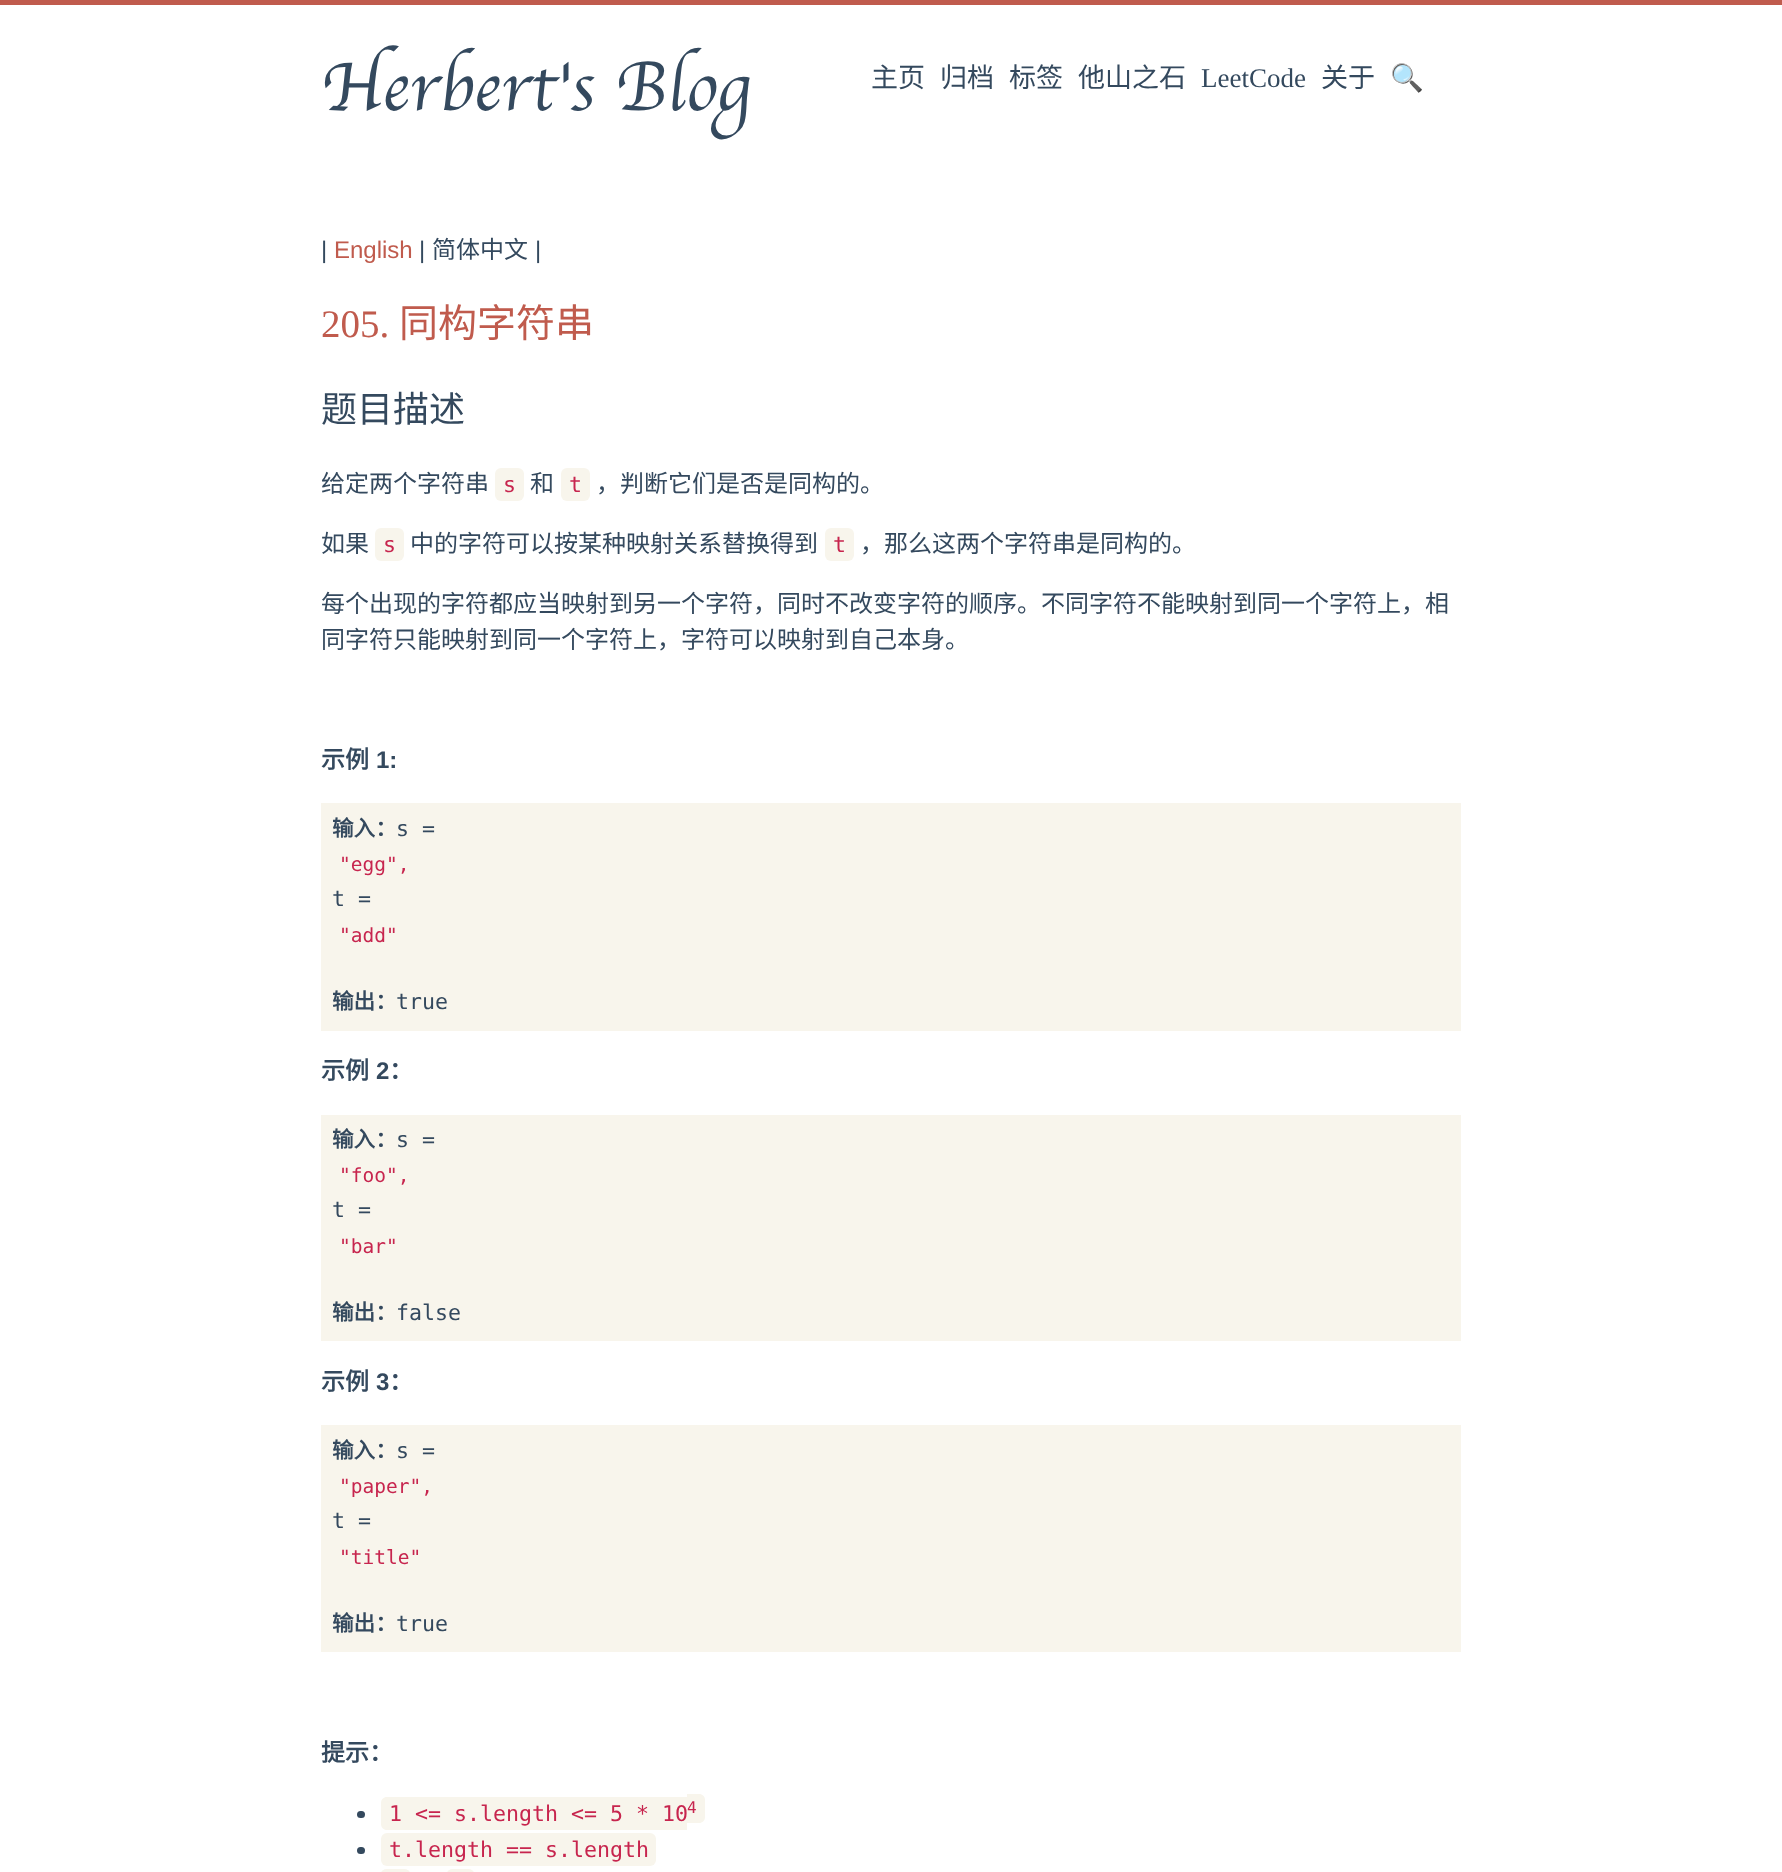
<svg xmlns="http://www.w3.org/2000/svg" width="1782" height="1872" viewBox="0 0 1782 1872">
  <defs>
    <clipPath id="clip1"><rect x="1391" y="59" width="33" height="40"/></clipPath>
  </defs>
  <rect width="100%" height="100%" fill="rgb(255,255,255)"/>
  <rect x="0" y="0" width="1782" height="5" fill="rgb(192,91,77)"/>
  <text x="321" y="110" font-family="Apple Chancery" font-size="72" font-weight="100" fill="rgb(52,73,94)">Herbert's Blog</text>
  <g font-family="Noto Sans CJK SC" font-size="27" fill="rgb(52,73,94)">
    <text x="871" y="87">主页</text>
    <text x="940" y="87">归档</text>
    <text x="1009" y="87">标签</text>
    <text x="1078" y="87">他山之石</text>
  </g>
  <text x="1201" y="87" font-family="Liberation Serif" font-size="27" fill="rgb(52,73,94)">LeetCode</text>
  <text x="1321" y="87" font-family="Noto Sans CJK SC" font-size="27" fill="rgb(52,73,94)">关于</text>
  <g clip-path="url(#clip1)">
    <text x="1390" y="87" font-family="Noto Color Emoji" font-size="27" fill="rgb(52,73,94)">🔍</text>
  </g>
  <text x="321" y="258" font-family="Liberation Sans" font-size="24" fill="rgb(52,73,94)">|</text>
  <text x="334" y="258" font-family="Liberation Sans" font-size="24" fill="rgb(192,91,77)">English</text>
  <text x="419" y="258" font-family="Liberation Sans" font-size="24" fill="rgb(52,73,94)">|</text>
  <text x="432" y="258" font-family="Noto Sans CJK SC" font-size="24" fill="rgb(52,73,94)">简体中文</text>
  <text x="535" y="258" font-family="Liberation Sans" font-size="24" fill="rgb(52,73,94)">|</text>
  <text x="321" y="337" font-family="Liberation Serif" font-size="39" fill="rgb(192,91,77)">205.</text>
  <text x="399" y="337" font-family="Noto Sans CJK SC" font-size="39" fill="rgb(192,91,77)">同构字符串</text>
  <text x="321" y="422" font-family="Noto Sans CJK SC" font-size="36" fill="rgb(52,73,94)">题目描述</text>
  <text x="321" y="492" font-family="Noto Sans CJK SC" font-size="24" fill="rgb(52,73,94)">给定两个字符串</text>
  <rect x="495" y="468" width="29" height="33" rx="6" fill="rgb(248,245,236)"/>
  <text x="503" y="492" font-family="DejaVu Sans Mono" font-size="21.6" fill="rgb(199,37,78)">s</text>
  <text x="530" y="492" font-family="Noto Sans CJK SC" font-size="24" fill="rgb(52,73,94)">和</text>
  <rect x="561" y="468" width="29" height="33" rx="6" fill="rgb(248,245,236)"/>
  <text x="569" y="492" font-family="DejaVu Sans Mono" font-size="21.6" fill="rgb(199,37,78)">t</text>
  <g font-family="Noto Sans CJK SC" font-size="24" fill="rgb(52,73,94)">
    <text x="596" y="492">，判断它们是否是同构的。</text>
    <text x="321" y="552">如果</text>
  </g>
  <rect x="375" y="528" width="29" height="33" rx="6" fill="rgb(248,245,236)"/>
  <text x="383" y="552" font-family="DejaVu Sans Mono" font-size="21.6" fill="rgb(199,37,78)">s</text>
  <text x="410" y="552" font-family="Noto Sans CJK SC" font-size="24" fill="rgb(52,73,94)">中的字符可以按某种映射关系替换得到</text>
  <rect x="825" y="528" width="29" height="33" rx="6" fill="rgb(248,245,236)"/>
  <text x="833" y="552" font-family="DejaVu Sans Mono" font-size="21.6" fill="rgb(199,37,78)">t</text>
  <g font-family="Noto Sans CJK SC" font-size="24" fill="rgb(52,73,94)">
    <text x="860" y="552">，那么这两个字符串是同构的。</text>
    <text>
      <tspan x="321" y="612">每个出现的字符都应当映射到另一个字符，同时不改变字符的顺序。不同字符不能映射到同一个字符上，相</tspan>
      <tspan x="321" y="648">同字符只能映射到同一个字符上，字符可以映射到自己本身。</tspan>
    </text>
  </g>
  <text x="321" y="768" font-family="Noto Sans CJK SC" font-size="24" font-weight="bold" fill="rgb(52,73,94)">示例</text>
  <text x="376" y="768" font-family="Liberation Sans" font-size="24" font-weight="bold" fill="rgb(52,73,94)">1:</text>
  <rect x="321" y="803" width="1140" height="228" fill="rgb(248,245,236)"/>
  <text x="332" y="836" font-family="Noto Sans CJK SC" font-size="21.6" font-weight="bold" fill="rgb(52,73,94)">输入：</text>
  <text x="396" y="836" font-family="DejaVu Sans Mono" font-size="21.6" fill="rgb(52,73,94)">s =</text>
  <text x="339" y="871" font-family="DejaVu Sans Mono" font-size="19.5" fill="rgb(199,37,78)">"egg",</text>
  <text x="332" y="906" font-family="DejaVu Sans Mono" font-size="21.6" fill="rgb(52,73,94)">t =</text>
  <text x="339" y="942" font-family="DejaVu Sans Mono" font-size="19.5" fill="rgb(199,37,78)">"add"</text>
  <text x="332" y="1009" font-family="Noto Sans CJK SC" font-size="21.6" font-weight="bold" fill="rgb(52,73,94)">输出：</text>
  <text x="396" y="1009" font-family="DejaVu Sans Mono" font-size="21.6" fill="rgb(52,73,94)">true</text>
  <text x="321" y="1079" font-family="Noto Sans CJK SC" font-size="24" font-weight="bold" fill="rgb(52,73,94)">示例</text>
  <text x="376" y="1079" font-family="Liberation Sans" font-size="24" font-weight="bold" fill="rgb(52,73,94)">2</text>
  <text x="389" y="1079" font-family="Noto Sans CJK SC" font-size="24" font-weight="bold" fill="rgb(52,73,94)">：</text>
  <rect x="321" y="1115" width="1140" height="226" fill="rgb(248,245,236)"/>
  <text x="332" y="1147" font-family="Noto Sans CJK SC" font-size="21.6" font-weight="bold" fill="rgb(52,73,94)">输入：</text>
  <text x="396" y="1147" font-family="DejaVu Sans Mono" font-size="21.6" fill="rgb(52,73,94)">s =</text>
  <text x="339" y="1182" font-family="DejaVu Sans Mono" font-size="19.5" fill="rgb(199,37,78)">"foo",</text>
  <text x="332" y="1217" font-family="DejaVu Sans Mono" font-size="21.6" fill="rgb(52,73,94)">t =</text>
  <text x="339" y="1253" font-family="DejaVu Sans Mono" font-size="19.5" fill="rgb(199,37,78)">"bar"</text>
  <text x="332" y="1320" font-family="Noto Sans CJK SC" font-size="21.6" font-weight="bold" fill="rgb(52,73,94)">输出：</text>
  <text x="396" y="1320" font-family="DejaVu Sans Mono" font-size="21.6" fill="rgb(52,73,94)">false</text>
  <text x="321" y="1390" font-family="Noto Sans CJK SC" font-size="24" font-weight="bold" fill="rgb(52,73,94)">示例</text>
  <text x="376" y="1390" font-family="Liberation Sans" font-size="24" font-weight="bold" fill="rgb(52,73,94)">3</text>
  <text x="389" y="1390" font-family="Noto Sans CJK SC" font-size="24" font-weight="bold" fill="rgb(52,73,94)">：</text>
  <rect x="321" y="1425" width="1140" height="227" fill="rgb(248,245,236)"/>
  <text x="332" y="1458" font-family="Noto Sans CJK SC" font-size="21.6" font-weight="bold" fill="rgb(52,73,94)">输入：</text>
  <text x="396" y="1458" font-family="DejaVu Sans Mono" font-size="21.6" fill="rgb(52,73,94)">s =</text>
  <text x="339" y="1493" font-family="DejaVu Sans Mono" font-size="19.5" fill="rgb(199,37,78)">"paper",</text>
  <text x="332" y="1528" font-family="DejaVu Sans Mono" font-size="21.6" fill="rgb(52,73,94)">t =</text>
  <text x="339" y="1564" font-family="DejaVu Sans Mono" font-size="19.5" fill="rgb(199,37,78)">"title"</text>
  <text x="332" y="1631" font-family="Noto Sans CJK SC" font-size="21.6" font-weight="bold" fill="rgb(52,73,94)">输出：</text>
  <text x="396" y="1631" font-family="DejaVu Sans Mono" font-size="21.6" fill="rgb(52,73,94)">true</text>
  <text x="321" y="1761" font-family="Noto Sans CJK SC" font-size="24" font-weight="bold" fill="rgb(52,73,94)">提示：</text>
  <rect x="357" y="1811" width="8" height="7" rx="3.5" fill="rgb(52,73,94)"/>
  <path d="M387 1797H687V1830H387C383.5 1830 381 1827.5 381 1824V1803C381 1799.5 383.5 1797 387 1797Z" fill="rgb(248,245,236)"/>
  <text x="389" y="1821" font-family="DejaVu Sans Mono" font-size="21.6" fill="rgb(199,37,78)">1 &lt;= s.length &lt;= 5 * 10</text>
  <path d="M687 1794H699C702.5 1794 705 1796.5 705 1800V1817C705 1820.5 702.5 1823 699 1823H687Z" fill="rgb(248,245,236)"/>
  <text x="687" y="1813" font-family="DejaVu Sans Mono" font-size="16" fill="rgb(199,37,78)">4</text>
  <rect x="357" y="1847" width="8" height="7" rx="3.5" fill="rgb(52,73,94)"/>
  <rect x="381" y="1833" width="275" height="33" rx="6" fill="rgb(248,245,236)"/>
  <text x="389" y="1857" font-family="DejaVu Sans Mono" font-size="21.6" fill="rgb(199,37,78)">t.length == s.length</text>
  <rect x="381" y="1869" width="29" height="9" rx="6" fill="rgb(248,245,236)"/>
  <rect x="447" y="1869" width="27" height="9" rx="6" fill="rgb(248,245,236)"/>
</svg>
